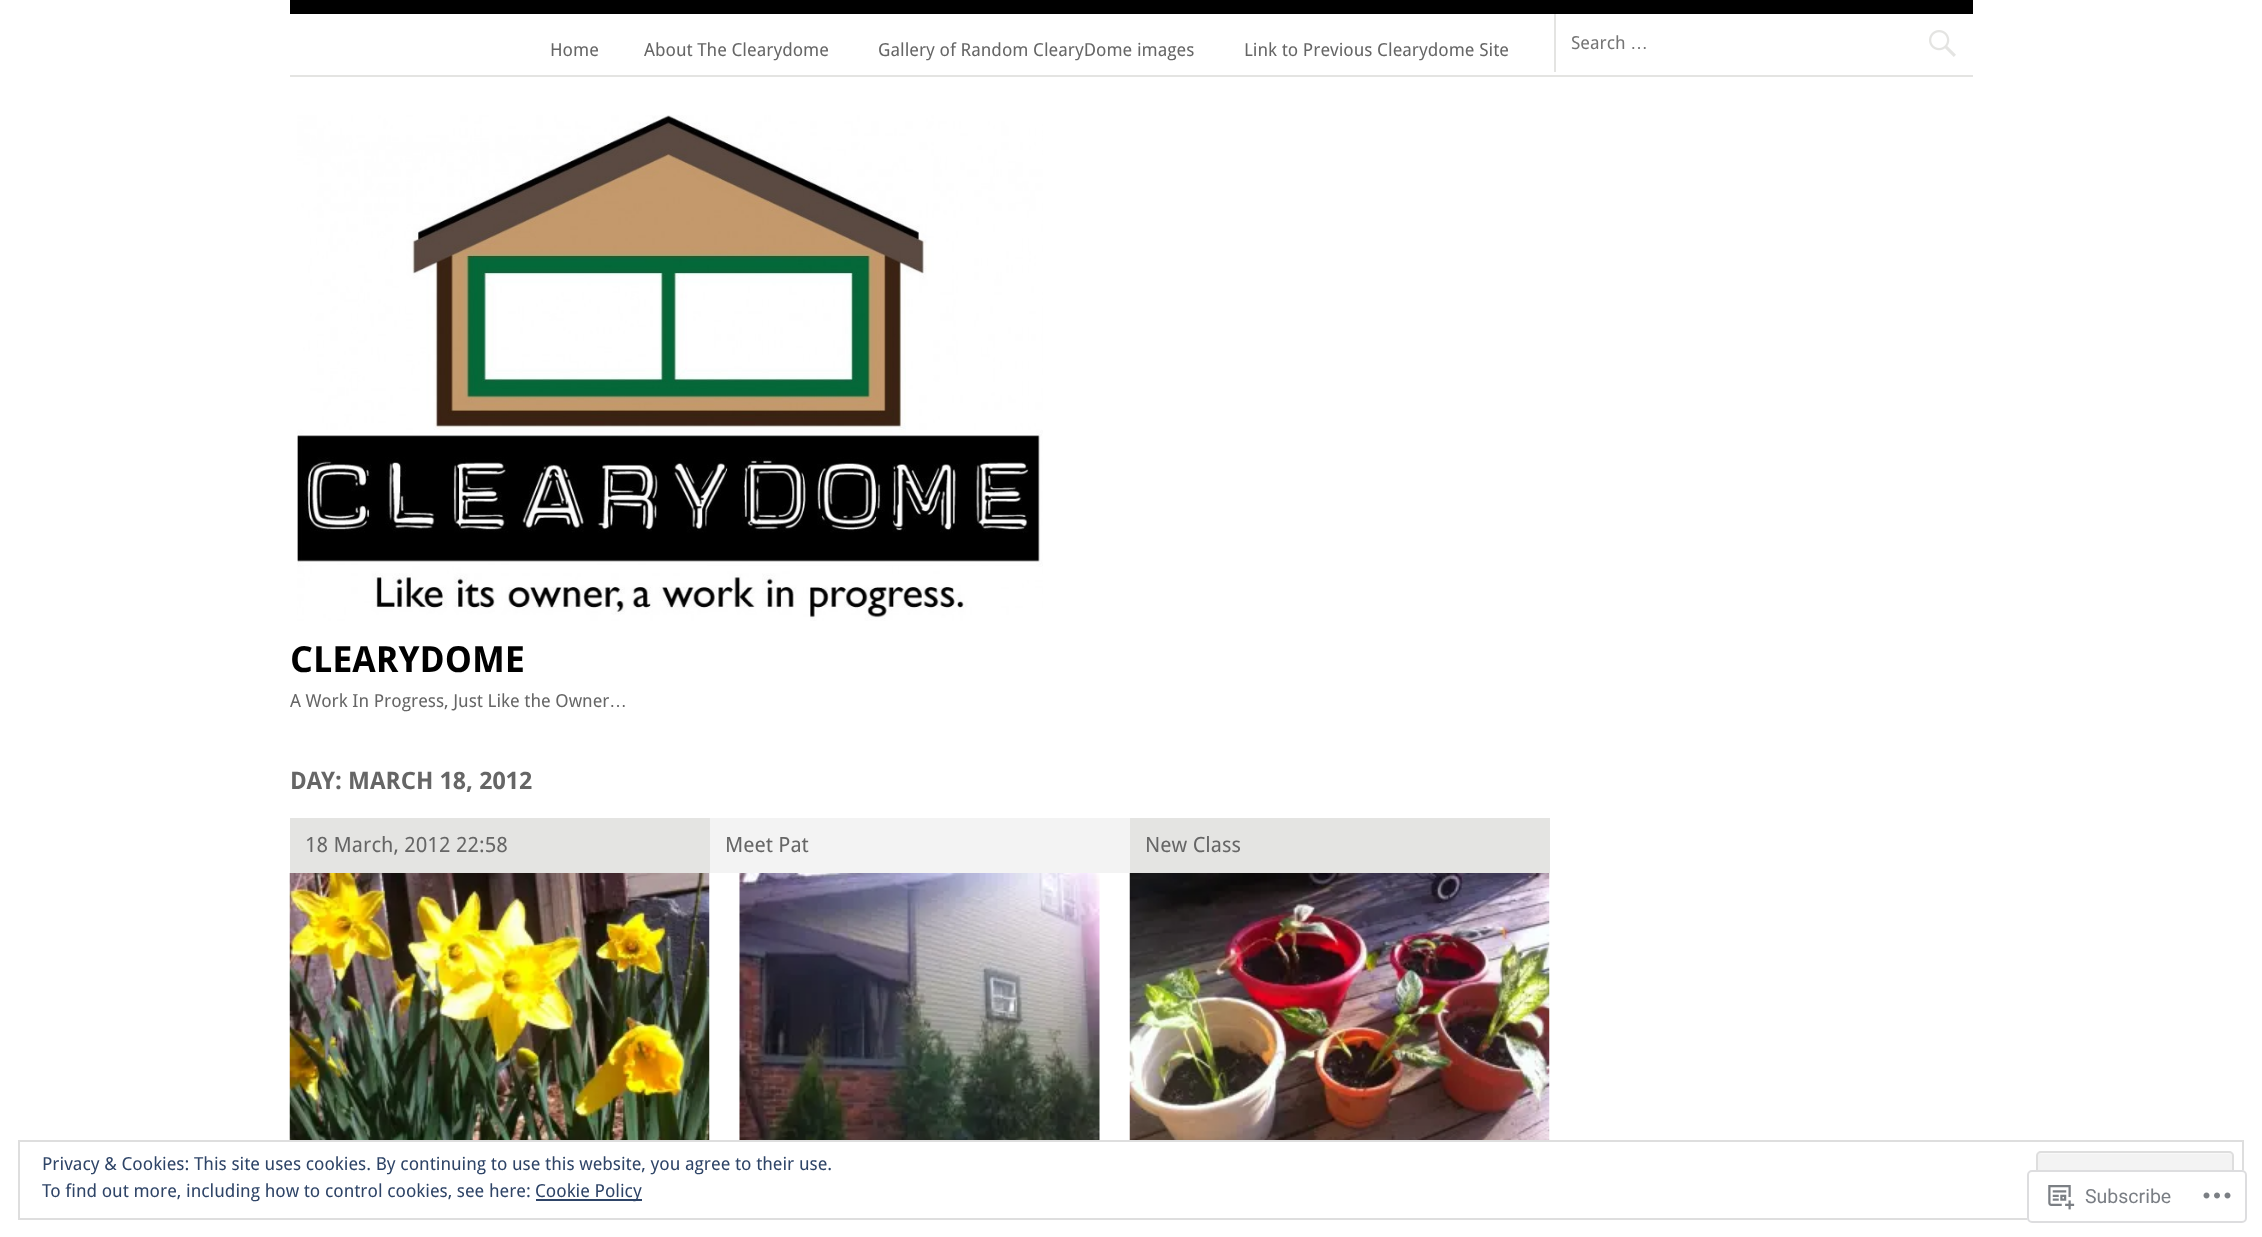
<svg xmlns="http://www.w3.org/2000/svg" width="2262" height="1237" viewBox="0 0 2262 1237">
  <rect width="100%" height="100%" fill="rgb(255,255,255)"/>
  <rect x="290" y="0" width="1683" height="14" fill="rgb(0,0,0)"/>
  <rect x="290" y="75" width="1683" height="2" fill="rgb(228,228,226)"/>
  <g font-family="Droid Sans" font-size="18" fill="rgb(102,102,102)">
    <text x="550" y="56">Home</text>
    <text x="644" y="56">About The Clearydome</text>
    <text x="878" y="56">Gallery of Random ClearyDome images</text>
    <text x="1244" y="56">Link to Previous Clearydome Site</text>
  </g>
  <rect x="1554" y="14" width="2" height="58" fill="rgb(228,228,226)"/>
  <text x="1571" y="49" font-family="Droid Sans" font-size="18" fill="rgb(117,117,117)">Search</text>
  <text x="1630" y="49" font-family="Liberation Sans" font-size="18" fill="rgb(117,117,117)">…</text>
  <image x="1929" y="30" width="27" height="27" href="pic1.png"/>
  <image x="297" y="115" width="746" height="506" href="pic2.png"/>
  <text x="290" y="672" font-family="Droid Sans" font-size="36" font-weight="bold" fill="rgb(0,0,0)">CLEARYDOME</text>
  <text x="290" y="707" font-family="Droid Sans" font-size="18" fill="rgb(102,102,102)">A Work In Progress, Just Like the Owner</text>
  <text x="609" y="707" font-family="Liberation Sans" font-size="18" fill="rgb(102,102,102)">…</text>
  <text x="290" y="789" font-family="Droid Sans" font-size="24" font-weight="bold" fill="rgb(102,102,102)">DAY: MARCH 18, 2012</text>
  <rect x="290" y="818" width="420" height="55" fill="rgb(228,228,226)"/>
  <text x="305" y="852" font-family="Droid Sans" font-size="21" fill="rgb(102,102,102)">18 March, 2012 22:58</text>
  <image x="289" y="873" width="421" height="267" href="pic3.png"/>
  <rect x="710" y="818" width="420" height="55" fill="rgb(243,243,243)"/>
  <text x="725" y="852" font-family="Droid Sans" font-size="21" fill="rgb(102,102,102)">Meet Pat</text>
  <image x="739" y="873" width="361" height="267" href="pic4.png"/>
  <rect x="1130" y="818" width="420" height="55" fill="rgb(228,228,226)"/>
  <text x="1145" y="852" font-family="Droid Sans" font-size="21" fill="rgb(102,102,102)">New Class</text>
  <image x="1129" y="873" width="421" height="267" href="pic5.png"/>
  <rect x="19" y="1141" width="2224" height="78" fill="none" stroke="rgb(222,222,222)" stroke-width="2"/>
  <text x="42" y="1170" font-family="Droid Sans" font-size="18" fill="rgb(46,68,103)">Privacy &amp; Cookies: This site uses cookies. By continuing to use this website, you agree to their use.</text>
  <rect x="2036" y="1151" width="198" height="58" rx="5" fill="rgb(243,243,243)"/>
  <path d="M2040 1154H2229C2231 1154 2232 1155 2232 1156C2232 1154 2231 1152 2229 1152H2040C2038 1152 2037 1154 2037 1156C2037 1155 2038 1154 2040 1154Z" fill="rgb(249,249,249)"/>
  <rect x="2037" y="1152" width="196" height="56" rx="4" fill="none" stroke="rgb(222,222,222)" stroke-width="2"/>
  <text x="42" y="1197" font-family="Droid Sans" font-size="18" fill="rgb(46,68,103)">To find out more, including how to control cookies, see here:</text>
  <rect x="536" y="1199" width="106" height="2" fill="rgb(46,68,103)"/>
  <text x="535" y="1197" font-family="Droid Sans" font-size="18" fill="rgb(46,68,103)">Cookie Policy</text>
  <rect x="2027" y="1170" width="220" height="53" rx="5" fill="rgba(255,255,255,0.98)"/>
  <rect x="2028" y="1171" width="218" height="51" rx="4" fill="none" stroke="rgba(220,220,222,0.98)" stroke-width="2"/>
  <image x="2048" y="1185" width="27" height="25" href="pic6.png"/>
  <text x="2085" y="1203" font-family="Roboto" font-size="19.5" fill="rgb(122,126,132)">Subscribe</text>
  <image x="2203" y="1192" width="28" height="7" href="pic7.png"/>
</svg>
